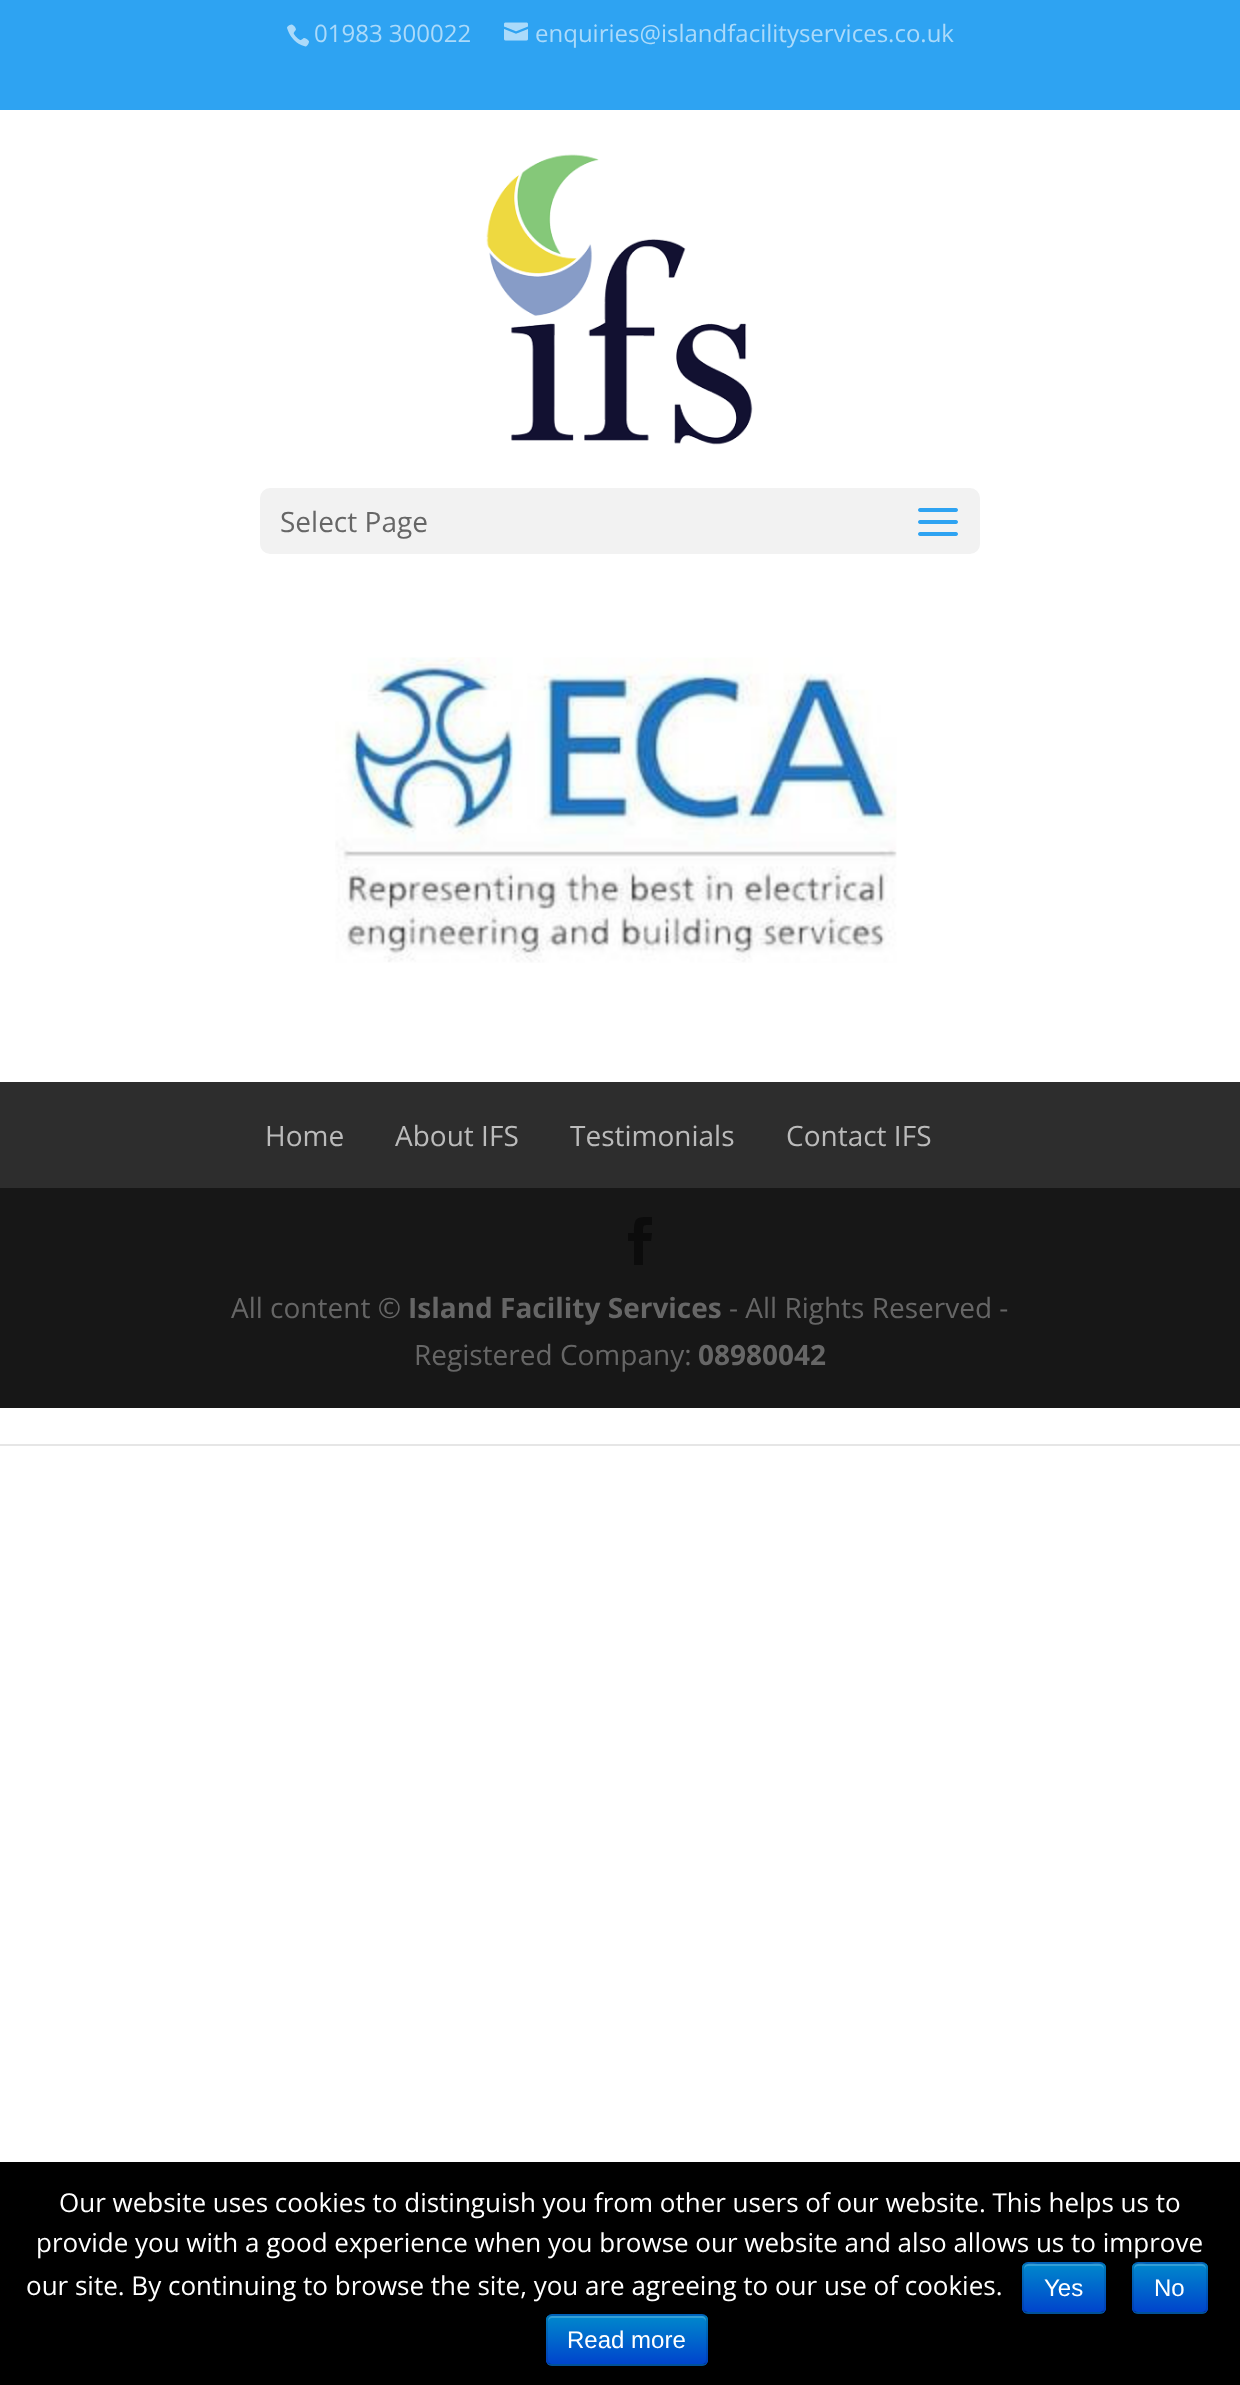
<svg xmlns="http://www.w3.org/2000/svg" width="1240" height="2385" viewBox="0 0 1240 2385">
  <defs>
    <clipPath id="clip1"><rect x="1022" y="2262" width="84" height="52" rx="6"/></clipPath>
    <linearGradient id="g1" gradientUnits="userSpaceOnUse" x1="1064" y1="2264" x2="1064" y2="2312"><stop offset="0" stop-color="rgb(0,136,204)"/><stop offset="1" stop-color="rgb(0,68,204)"/></linearGradient>
    <clipPath id="clip2"><rect x="1132" y="2262" width="76" height="52" rx="6"/></clipPath>
    <linearGradient id="g2" gradientUnits="userSpaceOnUse" x1="1170" y1="2264" x2="1170" y2="2312"><stop offset="0" stop-color="rgb(0,136,204)"/><stop offset="1" stop-color="rgb(0,68,204)"/></linearGradient>
    <clipPath id="clip3"><rect x="546" y="2314" width="162" height="52" rx="6"/></clipPath>
    <linearGradient id="g3" gradientUnits="userSpaceOnUse" x1="627" y1="2316" x2="627" y2="2364"><stop offset="0" stop-color="rgb(0,136,204)"/><stop offset="1" stop-color="rgb(0,68,204)"/></linearGradient>
  </defs>
  <rect width="100%" height="100%" fill="rgb(255,255,255)"/>
  <rect x="0" y="0" width="1240" height="110" fill="rgb(46,163,242)"/>
  <image x="287" y="24" width="22" height="23" href="pic1.png"/>
  <text x="314" y="42" font-family="Open Sans" font-size="24" fill="rgb(171,218,250)">01983 300022</text>
  <image x="504" y="22" width="24" height="19" href="pic2.png"/>
  <text x="535" y="42" font-family="Open Sans" font-size="24" fill="rgb(171,218,250)">enquiries@islandfacilityservices.co.uk</text>
  <rect x="0" y="1444" width="1240" height="2" fill="rgb(230,230,230)"/>
  <image x="486" y="154" width="267" height="291" href="pic3.png"/>
  <rect x="260" y="488" width="720" height="66" rx="10" fill="rgb(242,242,242)"/>
  <text x="280" y="532" font-family="Open Sans" font-size="28" fill="rgb(102,102,102)">Select Page</text>
  <image x="918" y="508" width="40" height="28" href="pic4.png"/>
  <image x="335" y="657" width="562" height="306" href="pic5.png"/>
  <rect x="0" y="1082" width="1240" height="106" fill="rgb(45,45,45)"/>
  <g font-family="Open Sans" font-size="28" fill="rgb(187,187,187)">
    <text x="265" y="1146">Home</text>
    <text x="395" y="1146">About IFS</text>
    <text x="570" y="1146">Testimonials</text>
    <text x="786" y="1146">Contact IFS</text>
  </g>
  <rect x="0" y="1188" width="1240" height="220" fill="rgb(23,23,23)"/>
  <path d="M634 1265H643V1241H651L652 1233H643C643 1224 643 1225 652 1225V1217C636 1217 634 1217 634 1233H628V1241H634Z" fill="rgb(12,12,12)"/>
  <text x="231" y="1318" font-family="Open Sans" font-size="28" fill="rgb(102,102,102)">All content ©</text>
  <text x="408" y="1318" font-family="Open Sans" font-size="28" font-weight="bold" fill="rgb(102,102,102)">Island Facility Services</text>
  <g font-family="Open Sans" font-size="28" fill="rgb(102,102,102)">
    <text x="729" y="1318">- All Rights Reserved -</text>
    <text x="414" y="1365">Registered Company:</text>
  </g>
  <text x="698" y="1365" font-family="Open Sans" font-size="28" font-weight="bold" fill="rgb(102,102,102)">08980042</text>
  <rect x="0" y="2162" width="1240" height="223" fill="rgb(0,0,0)"/>
  <g font-family="Open Sans" font-size="26" fill="rgb(255,255,255)">
    <text x="59" y="2212">Our website uses cookies to distinguish you from other users of our website. This helps us to</text>
    <text x="36" y="2252">provide you with a good experience when you browse our website and also allows us to improve</text>
    <text x="26" y="2295">our site. By continuing to browse the site, you are agreeing to our use of cookies.</text>
  </g>
  <rect x="1022" y="2262" width="84" height="52" rx="6" fill="rgb(0,109,204)"/>
  <g clip-path="url(#clip1)">
    <rect x="1022" y="2264" width="84" height="48" fill="url(#g1)"/>
  </g>
  <path d="M1028 2266H1100C1102 2266 1104 2268 1104 2270C1104 2261 1096 2264 1088 2264H1040C1032 2264 1024 2261 1024 2270C1024 2268 1026 2266 1028 2266Z" fill="rgba(255,255,255,0.2)"/>
  <path d="M1103.5 2311.5L1100.5 2313H1027.5L1024.5 2311.5" fill="none" stroke="rgba(0,0,0,0.25)" stroke-width="2"/>
  <path d="M1024.5 2311.5C1023.5 2310.5 1023 2309.5 1023 2308V2268C1023 2266.5 1023.5 2265.5 1024.5 2264.5C1025.5 2263.5 1026.5 2263 1028 2263H1100C1101.5 2263 1102.5 2263.5 1103.5 2264.5C1104.5 2265.5 1105 2266.5 1105 2268V2308C1105 2309.5 1104.5 2310.5 1103.5 2311.5" fill="none" stroke="rgba(0,0,0,0.1)" stroke-width="2"/>
  <text x="1044" y="2296" font-family="Liberation Sans" font-size="24" fill="rgb(255,255,255)">Yes</text>
  <rect x="1132" y="2262" width="76" height="52" rx="6" fill="rgb(0,109,204)"/>
  <g clip-path="url(#clip2)">
    <rect x="1132" y="2264" width="76" height="48" fill="url(#g2)"/>
  </g>
  <path d="M1138 2266H1202C1204 2266 1206 2268 1206 2270C1206 2261 1199 2264 1191 2264H1149C1141 2264 1134 2261 1134 2270C1134 2268 1136 2266 1138 2266Z" fill="rgba(255,255,255,0.2)"/>
  <path d="M1205.5 2311.5C1204.5 2312.5 1203.5 2313 1202 2313H1138C1136.5 2313 1135.5 2312.5 1134.5 2311.5" fill="none" stroke="rgba(0,0,0,0.25)" stroke-width="2"/>
  <path d="M1134.5 2311.5C1133.5 2310.5 1133 2309.5 1133 2308V2268C1133 2266.5 1133.5 2265.5 1134.5 2264.5C1135.5 2263.5 1136.5 2263 1138 2263H1202C1203.5 2263 1204.5 2263.5 1205.5 2264.5C1206.5 2265.5 1207 2266.5 1207 2268V2308C1207 2309.5 1206.5 2310.5 1205.5 2311.5" fill="none" stroke="rgba(0,0,0,0.1)" stroke-width="2"/>
  <text x="1154" y="2296" font-family="Liberation Sans" font-size="24" fill="rgb(255,255,255)">No</text>
  <rect x="546" y="2314" width="162" height="52" rx="6" fill="rgb(0,109,204)"/>
  <g clip-path="url(#clip3)">
    <rect x="546" y="2316" width="162" height="48" fill="url(#g3)"/>
  </g>
  <path d="M552 2318H702C704 2318 706 2320 706 2322V2320C706 2318 704 2316 702 2316H552C550 2316 548 2318 548 2320V2322C548 2320 550 2318 552 2318Z" fill="rgba(255,255,255,0.2)"/>
  <path d="M705.5 2363.5C704.5 2364.5 703.5 2365 702 2365H552C550.5 2365 549.5 2364.5 548.5 2363.5" fill="none" stroke="rgba(0,0,0,0.25)" stroke-width="2"/>
  <path d="M548.5 2363.5C546 2361 547 2356 547 2353.5V2326.5C547 2323 546 2315 552 2315H677C711.5 2315 707 2309 707 2340V2353.5C707 2356 708 2361 705.5 2363.5" fill="none" stroke="rgba(0,0,0,0.1)" stroke-width="2"/>
  <text x="567" y="2348" font-family="Liberation Sans" font-size="24" fill="rgb(255,255,255)">Read more</text>
</svg>
